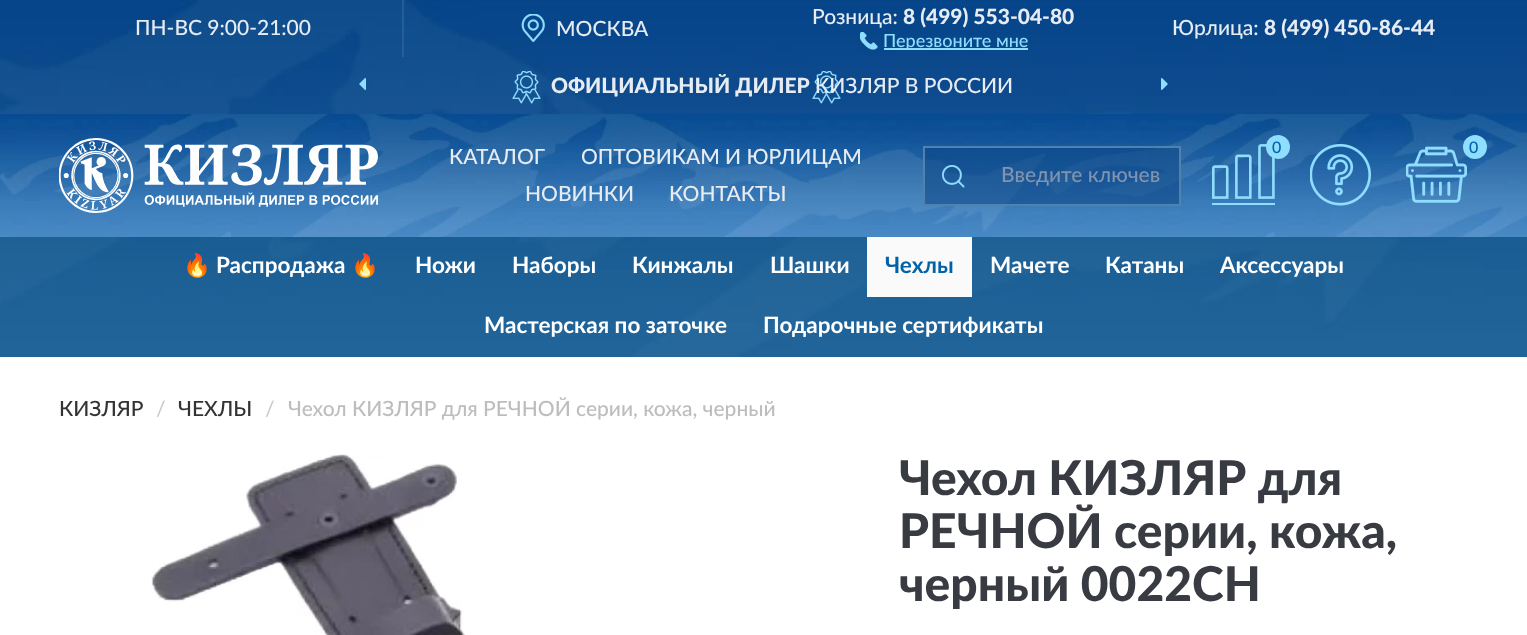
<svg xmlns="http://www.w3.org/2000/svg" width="1527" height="635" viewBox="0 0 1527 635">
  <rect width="100%" height="100%" fill="rgb(255,255,255)"/>
  <image x="0" y="0" width="1527" height="357" href="pic1.png"/>
  <rect x="0" y="0" width="1527" height="114" fill="rgba(8,66,131,0.52)"/>
  <rect x="402" y="0" width="2" height="57" fill="rgba(255,255,255,0.09)"/>
  <text x="135" y="35" font-family="Lato" font-size="21" font-weight="500" fill="rgb(231,236,242)">ПН-ВС 9:00-21:00</text>
  <image x="521" y="14" width="24" height="28" href="pic2.png"/>
  <g font-family="Lato" font-size="21" font-weight="500" fill="rgb(231,236,242)">
    <text x="556" y="36">МОСКВА</text>
    <text x="812" y="24">Розница:</text>
  </g>
  <text x="903" y="24" font-family="Lato" font-size="21" font-weight="900" fill="rgb(231,236,242)">8 (499) 553-04-80</text>
  <image x="860" y="32" width="18" height="18" href="pic3.png"/>
  <rect x="884" y="48" width="144" height="2" fill="rgb(143,222,255)"/>
  <text x="883" y="47" font-family="Lato" font-size="18" font-weight="500" fill="rgb(143,222,255)">Перезвоните мне</text>
  <text x="1172" y="35" font-family="Lato" font-size="21" font-weight="500" fill="rgb(231,236,242)">Юрлица:</text>
  <text x="1264" y="35" font-family="Lato" font-size="21" font-weight="900" fill="rgb(231,236,242)">8 (499) 450-86-44</text>
  <image x="512" y="71" width="329" height="33" href="pic4.png"/>
  <text x="551" y="93" font-family="Lato" font-size="21" font-weight="900" fill="rgb(231,236,242)">ОФИЦИАЛЬНЫЙ ДИЛЕР</text>
  <text x="815" y="93" font-family="Lato" font-size="21" font-weight="500" fill="rgb(231,236,242)">КИЗЛЯР В РОССИИ</text>
  <image x="359" y="78" width="7" height="12" href="pic5.png"/>
  <image x="1161" y="78" width="7" height="12" href="pic6.png"/>
  <image x="0" y="114" width="1527" height="123" href="pic7.png"/>
  <image x="59" y="138" width="319" height="75" href="pic8.png"/>
  <g font-family="Lato" font-size="21" font-weight="500" fill="rgb(231,236,242)">
    <text x="449" y="164">КАТАЛОГ</text>
    <text x="581" y="164">ОПТОВИКАМ И ЮРЛИЦАМ</text>
    <text x="525" y="201">НОВИНКИ</text>
    <text x="669" y="201">КОНТАКТЫ</text>
  </g>
  <rect x="925" y="148" width="58" height="56" fill="rgba(8,66,131,0.52)"/>
  <image x="942" y="165" width="23" height="23" href="pic9.png"/>
  <rect x="923" y="146" width="258" height="2" fill="rgb(81,129,173)"/>
  <rect x="923" y="204" width="60" height="2" fill="rgb(81,129,173)"/>
  <rect x="923" y="146" width="2" height="60" fill="rgb(81,129,173)"/>
  <rect x="983" y="148" width="196" height="56" fill="rgba(8,66,131,0.52)"/>
  <rect x="1179" y="146" width="2" height="60" fill="rgb(81,129,173)"/>
  <rect x="983" y="204" width="198" height="2" fill="rgb(81,129,173)"/>
  <text x="1001" y="182" font-family="Lato" font-size="21" font-weight="500" fill="rgb(128,148,174)">Введите ключев</text>
  <image x="1212" y="144" width="63" height="61" href="pic10.png"/>
  <circle cx="1278" cy="147" r="12" fill="rgb(143,222,255)"/>
  <text x="1272" y="153" font-family="Lato" font-size="16" font-weight="500" fill="rgb(0,99,168)">0</text>
  <image x="1310" y="144" width="61" height="62" href="pic11.png"/>
  <image x="1406" y="146" width="61" height="57" href="pic12.png"/>
  <circle cx="1475" cy="147" r="12" fill="rgb(143,222,255)"/>
  <text x="1469" y="153" font-family="Lato" font-size="16" font-weight="500" fill="rgb(0,99,168)">0</text>
  <rect x="0" y="237" width="1527" height="120" fill="rgba(4,73,121,0.58)"/>
  <text x="183" y="273" font-family="Noto Color Emoji" font-size="22.5" fill="rgb(255,255,255)">🔥</text>
  <text x="216" y="273" font-family="Lato" font-size="22.5" font-weight="bold" fill="rgb(255,255,255)">Распродажа</text>
  <text x="351" y="273" font-family="Noto Color Emoji" font-size="22.5" fill="rgb(255,255,255)">🔥</text>
  <g font-family="Lato" font-size="22.5" font-weight="bold" fill="rgb(255,255,255)">
    <text x="415" y="273">Ножи</text>
    <text x="512" y="273">Наборы</text>
    <text x="632" y="273">Кинжалы</text>
    <text x="770" y="273">Шашки</text>
  </g>
  <rect x="867" y="237" width="105" height="60" fill="rgb(250,250,250)"/>
  <text x="885" y="273" font-family="Lato" font-size="22.5" font-weight="bold" fill="rgb(0,99,168)">Чехлы</text>
  <g font-family="Lato" font-size="22.5" font-weight="bold" fill="rgb(255,255,255)">
    <text x="990" y="273">Мачете</text>
    <text x="1105" y="273">Катаны</text>
    <text x="1220" y="273">Аксессуары</text>
    <text x="484" y="333">Мастерская по заточке</text>
    <text x="763" y="333">Подарочные сертификаты</text>
  </g>
  <text x="59" y="416" font-family="Lato" font-size="21" font-weight="500" fill="rgb(51,51,51)">КИЗЛЯР</text>
  <text x="156" y="416" font-family="Lato" font-size="21" font-weight="500" fill="rgb(204,204,204)">/</text>
  <text x="178" y="416" font-family="Lato" font-size="21" font-weight="500" fill="rgb(51,51,51)">ЧЕХЛЫ</text>
  <text x="265" y="416" font-family="Lato" font-size="21" font-weight="500" fill="rgb(204,204,204)">/</text>
  <text x="288" y="416" font-family="Lato" font-size="21" font-weight="500" fill="rgb(189,189,189)">Чехол КИЗЛЯР для РЕЧНОЙ серии, кожа, черный</text>
  <image x="151" y="454" width="315" height="181" href="pic13.png"/>
  <g font-family="Lato" font-size="48" font-weight="900" fill="rgb(57,59,66)">
    <text>
      <tspan x="899" y="495">Чехол КИЗЛЯР для</tspan>
      <tspan x="899" y="548">РЕЧНОЙ серии, кожа,</tspan>
      <tspan x="899" y="601">черный 0022CH</tspan>
    </text>
  </g>
</svg>
